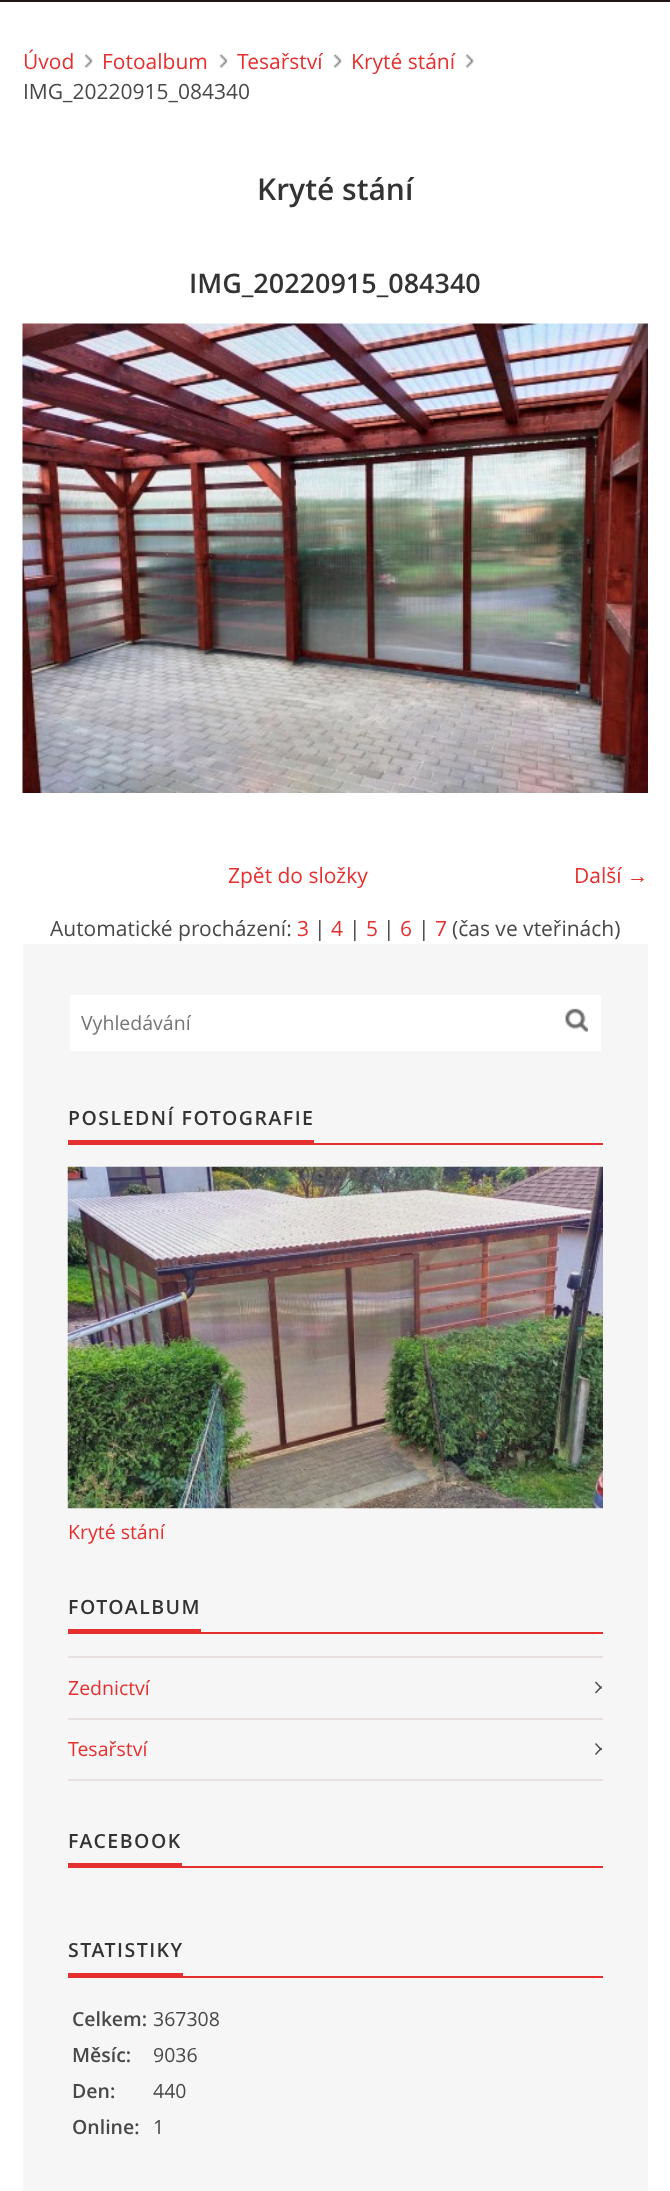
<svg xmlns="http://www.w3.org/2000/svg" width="670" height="2191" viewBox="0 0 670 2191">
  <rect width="100%" height="100%" fill="rgb(255,255,255)"/>
  <rect x="0" y="0" width="670" height="2" fill="rgb(33,21,21)"/>
  <image x="84" y="53" width="9" height="16" href="pic1.png"/>
  <text x="23" y="69" font-family="Open Sans" font-size="21" fill="rgb(230,47,47)">Úvod</text>
  <image x="219" y="53" width="9" height="16" href="pic1.png"/>
  <text x="102" y="69" font-family="Open Sans" font-size="21" fill="rgb(230,47,47)">Fotoalbum</text>
  <image x="333" y="53" width="9" height="16" href="pic2.png"/>
  <text x="237" y="69" font-family="Open Sans" font-size="21" fill="rgb(230,47,47)">Tesařství</text>
  <image x="465" y="53" width="9" height="16" href="pic2.png"/>
  <text x="351" y="69" font-family="Open Sans" font-size="21" fill="rgb(230,47,47)">Kryté stání</text>
  <text x="23" y="99" font-family="Open Sans" font-size="21" fill="rgb(72,72,72)">IMG_20220915_084340</text>
  <text x="257" y="200" font-family="Open Sans" font-size="30" font-weight="600" fill="rgb(51,51,51)">Kryté stání</text>
  <text x="189" y="293" font-family="Open Sans" font-size="27" font-weight="600" fill="rgb(51,51,51)">IMG_20220915_084340</text>
  <image x="22" y="323" width="626" height="470" href="pic3.png"/>
  <g font-family="Open Sans" font-size="21" fill="rgb(230,47,47)">
    <text x="228" y="883">Zpět do složky</text>
    <text x="574" y="883">Další</text>
  </g>
  <text x="627" y="883" font-family="Liberation Serif" font-size="21" fill="rgb(230,47,47)">→</text>
  <text x="50" y="936" font-family="Open Sans" font-size="21" fill="rgb(72,72,72)">Automatické procházení:</text>
  <text x="297" y="936" font-family="Open Sans" font-size="21" fill="rgb(230,47,47)">3</text>
  <text x="314" y="936" font-family="Open Sans" font-size="21" fill="rgb(72,72,72)">|</text>
  <text x="331" y="936" font-family="Open Sans" font-size="21" fill="rgb(230,47,47)">4</text>
  <text x="349" y="936" font-family="Open Sans" font-size="21" fill="rgb(72,72,72)">|</text>
  <text x="366" y="936" font-family="Open Sans" font-size="21" fill="rgb(230,47,47)">5</text>
  <text x="383" y="936" font-family="Open Sans" font-size="21" fill="rgb(72,72,72)">|</text>
  <text x="400" y="936" font-family="Open Sans" font-size="21" fill="rgb(230,47,47)">6</text>
  <text x="418" y="936" font-family="Open Sans" font-size="21" fill="rgb(72,72,72)">|</text>
  <text x="435" y="936" font-family="Open Sans" font-size="21" fill="rgb(230,47,47)">7</text>
  <text x="452" y="936" font-family="Open Sans" font-size="21" fill="rgb(72,72,72)">(čas ve vteřinách)</text>
  <rect x="23" y="944" width="625" height="1247" fill="rgb(246,246,246)"/>
  <rect x="70" y="995" width="531" height="56" fill="rgb(255,255,255)"/>
  <text x="81" y="1030" font-family="Open Sans" font-size="19.5" fill="rgb(117,117,117)">Vyhledávání</text>
  <image x="565" y="1008" width="23" height="24" href="pic4.png"/>
  <text x="68" y="1125" font-family="Open Sans" font-size="19.5" font-weight="600" letter-spacing="1.5" fill="rgb(51,51,51)">POSLEDNÍ FOTOGRAFIE</text>
  <rect x="68" y="1140" width="246" height="3" fill="rgb(230,47,47)"/>
  <rect x="68" y="1143" width="535" height="2" fill="rgb(230,47,47)"/>
  <image x="67" y="1166" width="536" height="343" href="pic5.png"/>
  <text x="68" y="1539" font-family="Open Sans" font-size="19.5" fill="rgb(230,47,47)">Kryté stání</text>
  <text x="68" y="1614" font-family="Open Sans" font-size="19.5" font-weight="600" letter-spacing="1.5" fill="rgb(51,51,51)">FOTOALBUM</text>
  <rect x="68" y="1629" width="133" height="3" fill="rgb(230,47,47)"/>
  <rect x="68" y="1632" width="535" height="2" fill="rgb(230,47,47)"/>
  <rect x="68" y="1656" width="535" height="2" fill="rgb(232,223,223)"/>
  <rect x="68" y="1718" width="535" height="2" fill="rgb(232,223,223)"/>
  <text x="68" y="1695" font-family="Open Sans" font-size="19.5" fill="rgb(230,47,47)">Zednictví</text>
  <path d="M596 1681.5L602 1688L601 1689L595 1682.5Z" fill="rgb(72,72,72)"/>
  <path d="M595 1692.5L601 1686L602 1687L596 1693.5Z" fill="rgb(72,72,72)"/>
  <rect x="68" y="1779" width="535" height="2" fill="rgb(232,223,223)"/>
  <text x="68" y="1756" font-family="Open Sans" font-size="19.5" fill="rgb(230,47,47)">Tesařství</text>
  <path d="M596 1743L602 1749.5L601 1750.5L595 1744Z" fill="rgb(72,72,72)"/>
  <path d="M595 1754L601 1747.5L602 1748.5L596 1755Z" fill="rgb(72,72,72)"/>
  <text x="68" y="1848" font-family="Open Sans" font-size="19.5" font-weight="600" letter-spacing="1.5" fill="rgb(51,51,51)">FACEBOOK</text>
  <rect x="68" y="1863" width="114" height="3" fill="rgb(230,47,47)"/>
  <rect x="68" y="1866" width="535" height="2" fill="rgb(230,47,47)"/>
  <text x="68" y="1957" font-family="Open Sans" font-size="19.5" font-weight="600" letter-spacing="1.5" fill="rgb(51,51,51)">STATISTIKY</text>
  <rect x="68" y="1973" width="115" height="3" fill="rgb(230,47,47)"/>
  <rect x="68" y="1976" width="535" height="2" fill="rgb(230,47,47)"/>
  <text x="72" y="2026" font-family="Open Sans" font-size="19.5" font-weight="600" fill="rgb(72,72,72)">Celkem:</text>
  <text x="153" y="2026" font-family="Open Sans" font-size="19.5" fill="rgb(72,72,72)">367308</text>
  <text x="72" y="2062" font-family="Open Sans" font-size="19.5" font-weight="600" fill="rgb(72,72,72)">Měsíc:</text>
  <text x="153" y="2062" font-family="Open Sans" font-size="19.5" fill="rgb(72,72,72)">9036</text>
  <text x="72" y="2098" font-family="Open Sans" font-size="19.5" font-weight="600" fill="rgb(72,72,72)">Den:</text>
  <text x="153" y="2098" font-family="Open Sans" font-size="19.5" fill="rgb(72,72,72)">440</text>
  <text x="72" y="2134" font-family="Open Sans" font-size="19.5" font-weight="600" fill="rgb(72,72,72)">Online:</text>
  <text x="153" y="2134" font-family="Open Sans" font-size="19.5" fill="rgb(72,72,72)">1</text>
</svg>
